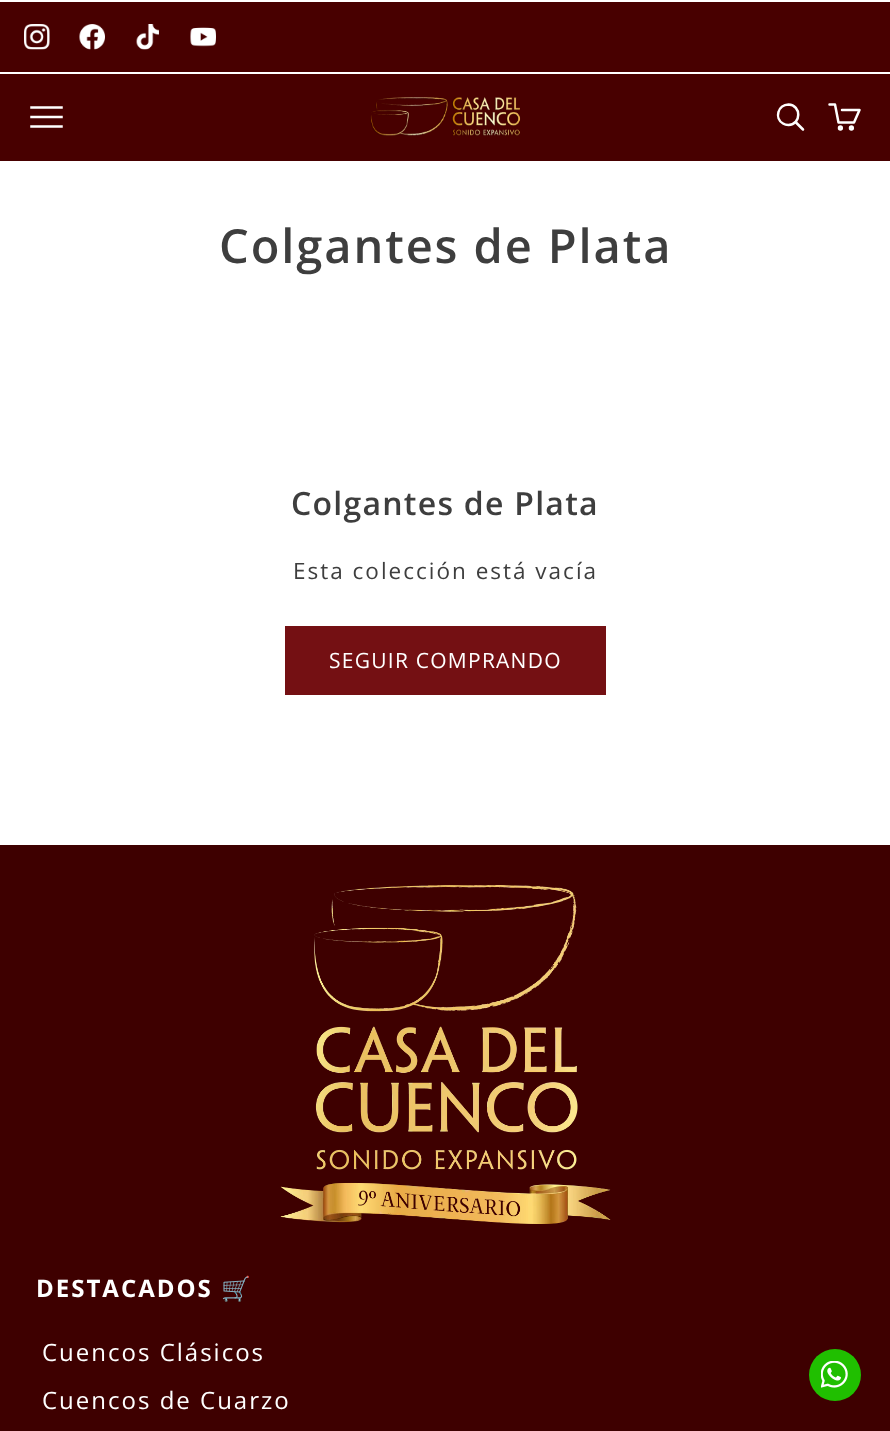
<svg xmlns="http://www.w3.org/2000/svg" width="890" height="1431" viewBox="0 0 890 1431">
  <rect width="100%" height="100%" fill="rgb(255,255,255)"/>
  <rect x="0" y="2" width="890" height="70" fill="rgb(72,0,0)"/>
  <image x="24" y="24" width="26" height="26" href="pic1.png"/>
  <image x="79" y="24" width="26" height="26" href="pic2.png"/>
  <image x="136" y="24" width="23" height="26" href="pic3.png"/>
  <image x="190" y="27" width="26" height="20" href="pic4.png"/>
  <rect x="0" y="74" width="890" height="87" fill="rgb(72,0,0)"/>
  <path d="M31.5 126.5H61.5M31.5 117H61.5M31.5 107.5H61.5" fill="none" stroke="rgb(255,255,255)" stroke-width="2.5" stroke-linecap="square"/>
  <image x="370" y="97" width="151" height="39" href="pic5.png"/>
  <path d="M788.5 104.5C778 104.5 774 118.5 783 123.5C784.5 124.5 786.5 125 788.5 125C801.5 124.5 801.5 105 788.5 104.5Z" fill="none" stroke="rgb(255,255,255)" stroke-width="2.5"/>
  <path d="M796 122.5L803 129.5" fill="none" stroke="rgb(255,255,255)" stroke-width="2.5" stroke-linecap="round"/>
  <path d="M842 110H859.5L854 122.5H838.5L835 104.5H829.5" fill="none" stroke="rgb(255,255,255)" stroke-width="2.5" stroke-linecap="round" stroke-linejoin="round"/>
  <circle cx="840.4" cy="128" r="1.4" fill="none" stroke="rgb(255,255,255)" stroke-width="2.5"/>
  <circle cx="851.4" cy="128" r="1.4" fill="none" stroke="rgb(255,255,255)" stroke-width="2.5"/>
  <text x="219" y="263" font-family="Open Sans" font-size="47" font-weight="600" letter-spacing="1.9" fill="rgb(62,62,62)">Colgantes de Plata</text>
  <text x="291" y="515" font-family="Open Sans" font-size="32" font-weight="600" letter-spacing="1.25" fill="rgb(62,62,62)">Colgantes de Plata</text>
  <text x="293" y="579" font-family="Open Sans" font-size="22.5" letter-spacing="2" fill="rgb(62,62,62)">Esta colección está vacía</text>
  <rect x="286" y="627" width="319" height="67" fill="rgb(116,16,19)" stroke="rgb(116,16,19)" stroke-width="2"/>
  <text x="329" y="668" font-family="Open Sans" font-size="21" letter-spacing="1.25" fill="rgb(255,255,255)">SEGUIR COMPRANDO</text>
  <rect x="0" y="845" width="890" height="586" fill="rgb(62,0,0)"/>
  <image x="280" y="885" width="331" height="339" href="pic6.png"/>
  <text x="36" y="1297" font-family="Open Sans" font-size="24" font-weight="bold" letter-spacing="2" fill="rgb(255,255,255)">DESTACADOS</text>
  <text x="221" y="1297" font-family="Noto Color Emoji" font-size="24" font-weight="bold" letter-spacing="2" fill="rgb(255,255,255)">🛒</text>
  <g font-family="Open Sans" font-size="24" letter-spacing="2" fill="rgb(255,255,255)">
    <text x="42" y="1361">Cuencos Clásicos</text>
    <text x="42" y="1409">Cuencos de Cuarzo</text>
  </g>
  <circle cx="835" cy="1375" r="26" fill="rgb(32,191,0)"/>
  <image x="821" y="1361" width="27" height="27" href="pic7.png"/>
</svg>
